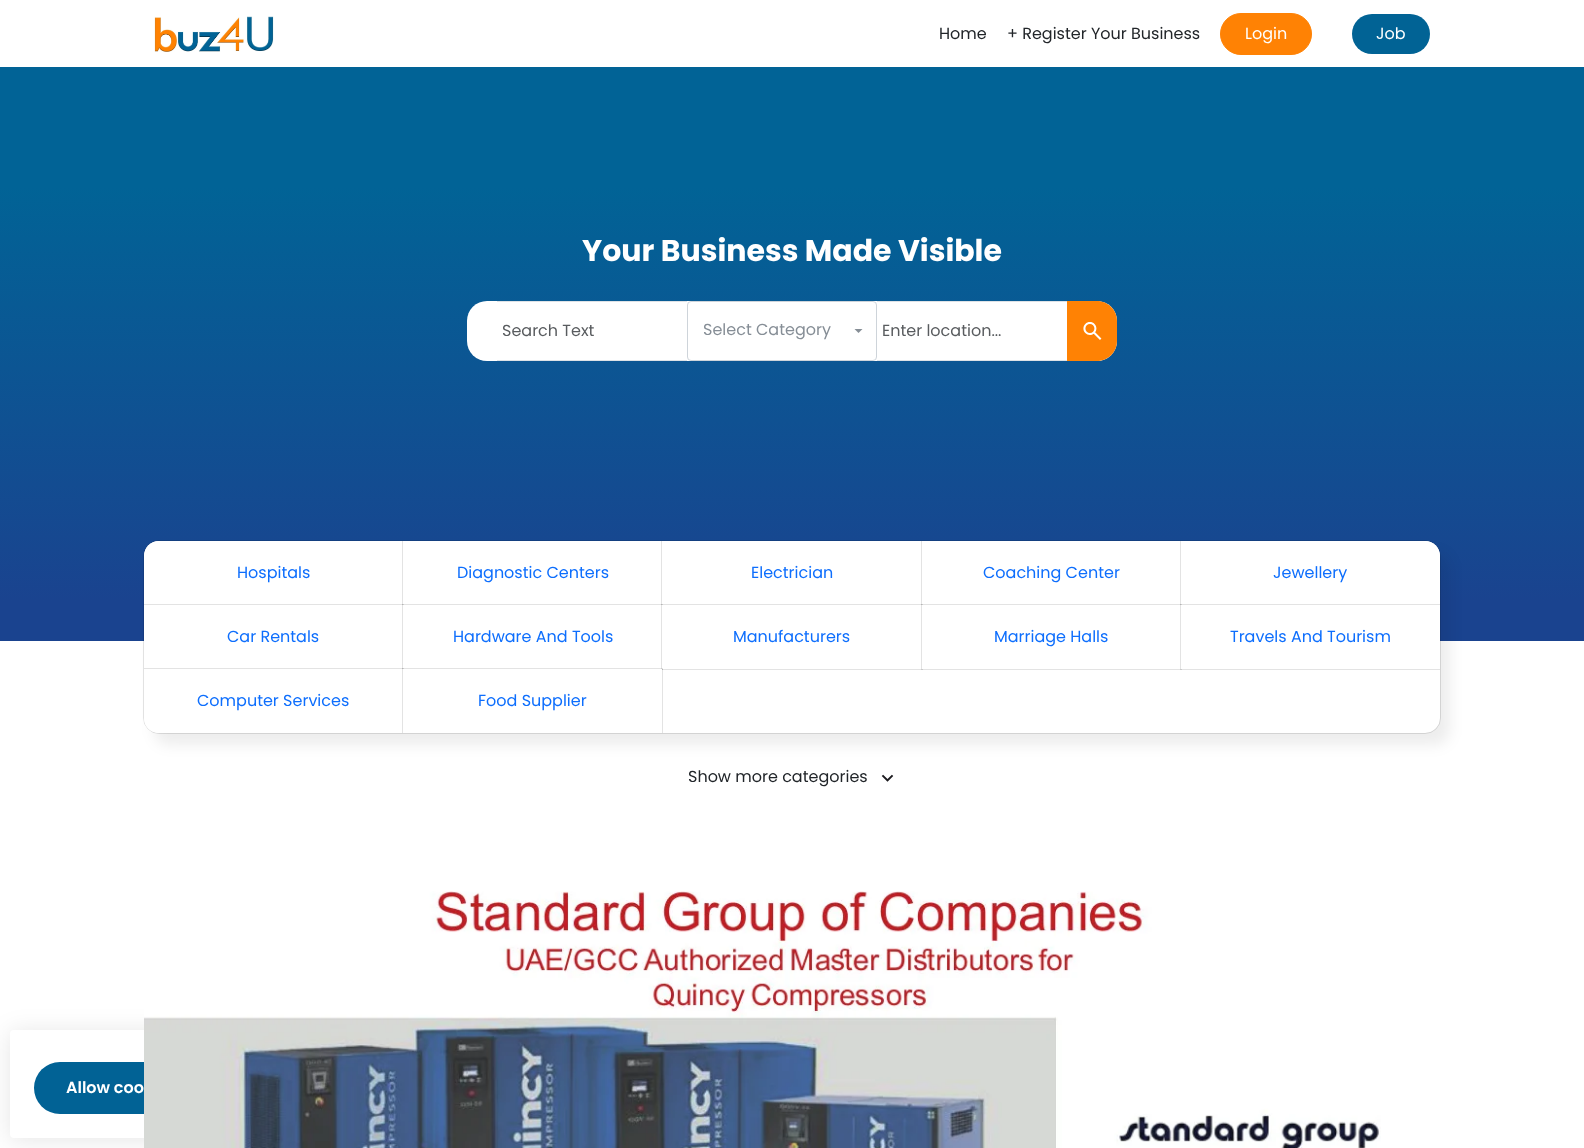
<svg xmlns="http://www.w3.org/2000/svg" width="1584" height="1148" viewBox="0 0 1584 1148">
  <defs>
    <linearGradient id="g1" gradientUnits="userSpaceOnUse" x1="792" y1="67" x2="792" y2="641"><stop offset="0.21" stop-color="rgb(1,99,150)"/><stop offset="0.93" stop-color="rgb(26,67,143)"/></linearGradient>
  </defs>
  <rect width="100%" height="100%" fill="rgb(255,255,255)"/>
  <image x="154" y="16" width="120" height="36" href="pic1.png"/>
  <g font-family="Poppins" font-size="16" fill="rgb(33,37,41)">
    <text x="939" y="39">Home</text>
    <text x="1007" y="39">+ Register Your Business</text>
  </g>
  <rect x="1220.5" y="13.5" width="91" height="41" rx="20.5" fill="rgb(255,130,4)" stroke="rgb(255,130,4)"/>
  <text x="1245" y="39" font-family="Poppins" font-size="16" fill="rgb(255,255,255)">Login</text>
  <rect x="1352" y="14" width="78" height="40" rx="20" fill="rgb(1,99,149)"/>
  <text x="1376" y="39" font-family="Poppins" font-size="16" fill="rgb(255,255,255)">Job</text>
  <rect x="0" y="67" width="1584" height="574" fill="url(#g1)"/>
  <text x="582" y="261" font-family="Poppins" font-size="30" font-weight="bold" fill="rgb(255,255,255)">Your Business Made Visible</text>
  <rect x="467" y="301" width="650" height="60" rx="20" fill="rgb(255,255,255)"/>
  <rect x="497" y="301" width="190" height="1" fill="rgb(222,226,230)"/>
  <rect x="497" y="360" width="190" height="1" fill="rgb(222,226,230)"/>
  <text x="502" y="336" font-family="Poppins" font-size="16" fill="rgb(89,92,95)">Search Text</text>
  <rect x="687.5" y="301.5" width="189" height="59" rx="3.5" fill="none" stroke="rgb(206,212,218)"/>
  <text x="703" y="335" font-family="Poppins" font-size="16" fill="rgb(134,142,150)">Select Category</text>
  <path d="M854.5 329H862.5L858.5 333Z" fill="rgb(134,142,150)"/>
  <rect x="877" y="301" width="190" height="1" fill="rgb(222,226,230)"/>
  <rect x="877" y="360" width="190" height="1" fill="rgb(222,226,230)"/>
  <text x="882" y="336" font-family="Poppins" font-size="16" fill="rgb(89,92,95)">Enter location...</text>
  <path d="M1067 301H1097C1108 301 1117 310 1117 321V341C1117 352 1108 361 1097 361H1067Z" fill="rgb(255,130,4)"/>
  <image x="1083" y="322" width="19" height="18" href="pic2.png"/>
  <rect x="154" y="553" width="1296" height="192" rx="15" fill="rgba(0,0,0,0.07)" filter="blur(7px)"/>
  <rect x="144" y="541" width="1296" height="192" rx="15" fill="rgb(255,255,255)"/>
  <rect x="143.5" y="540.5" width="1297" height="193" rx="15.5" fill="none" stroke="rgba(0,0,0,0.11)"/>
  <path d="M159 541H403V605H144V556C144 547.5 150.5 541 159 541Z" fill="rgb(255,255,255)"/>
  <text x="237" y="578" font-family="Poppins" font-size="16" fill="rgb(13,110,253)">Hospitals</text>
  <path d="M403 541V605H662V541H663V606H402V541Z" fill="rgba(0,0,0,0.11)"/>
  <text x="457" y="578" font-family="Poppins" font-size="16" fill="rgb(13,110,253)">Diagnostic Centers</text>
  <rect x="662" y="541" width="1" height="64" fill="rgb(255,255,255)"/>
  <path d="M662 541V605H922V541H923V606H661V541Z" fill="rgba(0,0,0,0.11)"/>
  <text x="751" y="578" font-family="Poppins" font-size="16" fill="rgb(13,110,253)">Electrician</text>
  <rect x="922" y="541" width="1" height="64" fill="rgb(255,255,255)"/>
  <path d="M922 541V605H1181V541H1182V606H921V541Z" fill="rgba(0,0,0,0.11)"/>
  <text x="983" y="578" font-family="Poppins" font-size="16" fill="rgb(13,110,253)">Coaching Center</text>
  <path d="M1181 541H1425C1433.5 541 1440 547.5 1440 556V605H1181Z" fill="rgb(255,255,255)"/>
  <path d="M1181 541V605H1440V606H1180V541Z" fill="rgba(0,0,0,0.11)"/>
  <text x="1273" y="578" font-family="Poppins" font-size="16" fill="rgb(13,110,253)">Jewellery</text>
  <rect x="402" y="605" width="1" height="1" fill="rgb(255,255,255)"/>
  <path d="M144 605H403V669H144V670H404V604H144Z" fill="rgba(0,0,0,0.11)"/>
  <text x="227" y="642" font-family="Poppins" font-size="16" fill="rgb(13,110,253)">Car Rentals</text>
  <rect x="403" y="605" width="259" height="64" fill="rgb(255,255,255)"/>
  <rect x="402.5" y="604.5" width="260" height="65" fill="none" stroke="rgba(0,0,0,0.11)"/>
  <text x="453" y="642" font-family="Poppins" font-size="16" fill="rgb(13,110,253)">Hardware And Tools</text>
  <rect x="662" y="605" width="260" height="64" fill="rgb(255,255,255)"/>
  <rect x="661.5" y="604.5" width="261" height="65" fill="none" stroke="rgba(0,0,0,0.11)"/>
  <text x="733" y="642" font-family="Poppins" font-size="16" fill="rgb(13,110,253)">Manufacturers</text>
  <rect x="922" y="605" width="259" height="64" fill="rgb(255,255,255)"/>
  <rect x="921.5" y="604.5" width="260" height="65" fill="none" stroke="rgba(0,0,0,0.11)"/>
  <text x="994" y="642" font-family="Poppins" font-size="16" fill="rgb(13,110,253)">Marriage Halls</text>
  <rect x="1181" y="605" width="259" height="64" fill="rgb(255,255,255)"/>
  <path d="M1180 604V670H1440V669H1181V605H1440V604Z" fill="rgba(0,0,0,0.11)"/>
  <text x="1230" y="642" font-family="Poppins" font-size="16" fill="rgb(13,110,253)">Travels And Tourism</text>
  <path d="M144 669H403V733H159C150.5 733 144 726.5 144 718Z" fill="rgb(255,255,255)"/>
  <path d="M144 669H403V733H404V668H144Z" fill="rgba(0,0,0,0.11)"/>
  <text x="197" y="706" font-family="Poppins" font-size="16" fill="rgb(13,110,253)">Computer Services</text>
  <rect x="403" y="669" width="259" height="64" fill="rgb(255,255,255)"/>
  <path d="M402 668V733H403V669H662V733H663V668Z" fill="rgba(0,0,0,0.11)"/>
  <text x="478" y="706" font-family="Poppins" font-size="16" fill="rgb(13,110,253)">Food Supplier</text>
  <text x="688" y="782" font-family="Poppins" font-size="16" fill="rgb(33,37,41)">Show more categories</text>
  <image x="881" y="774" width="13" height="8" href="pic3.png"/>
  <rect x="10" y="1032" width="222" height="108" rx="4" fill="rgba(0,0,0,0.1)" filter="blur(12.5px)"/>
  <rect x="10" y="1030" width="222" height="108" rx="4" fill="rgb(255,255,255)"/>
  <rect x="34" y="1062" width="174" height="52" rx="26" fill="rgb(1,98,149)"/>
  <text x="66" y="1093" font-family="Poppins" font-size="16" font-weight="600" fill="rgb(255,255,255)">Allow coo</text>
  <image x="144" y="891" width="1237" height="257" href="pic4.png"/>
</svg>
